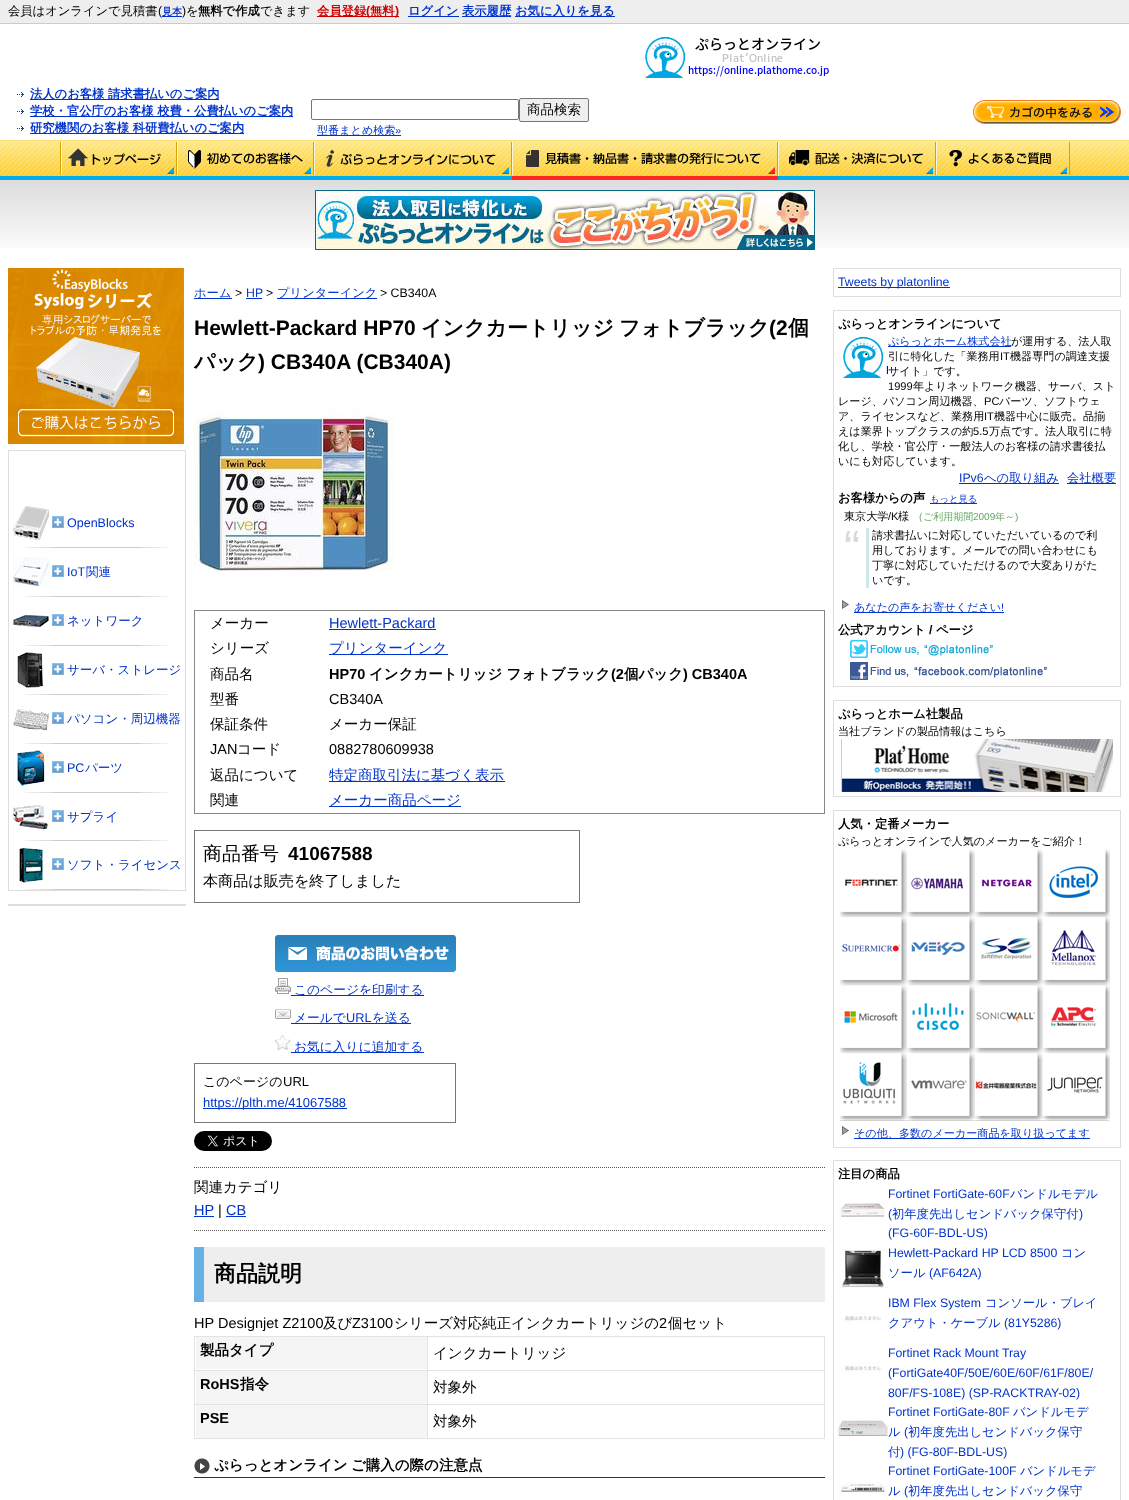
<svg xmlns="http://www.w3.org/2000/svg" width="1129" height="1500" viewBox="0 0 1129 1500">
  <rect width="100%" height="100%" fill="rgb(255,255,255)"/>
  <rect x="0" y="0" width="1129" height="23" fill="rgb(238,238,238)"/>
  <rect x="0" y="23" width="1129" height="1" fill="rgb(204,204,204)"/>
  <text x="8" y="15" font-family="WenQuanYi Zen Hei" font-size="12.3" font-weight="500" fill="rgb(0,0,0)">会員はオンラインで見積書</text>
  <text x="158" y="15" font-family="Liberation Sans" font-size="12.3" fill="rgb(0,0,0)">(</text>
  <rect x="162" y="16" width="20" height="1" fill="rgb(0,51,204)"/>
  <text x="162" y="15" font-family="WenQuanYi Zen Hei" font-size="10" font-weight="bold" fill="rgb(0,51,204)">見本</text>
  <text x="182" y="15" font-family="Liberation Sans" font-size="12.3" fill="rgb(0,0,0)">)</text>
  <text x="186" y="15" font-family="WenQuanYi Zen Hei" font-size="12.3" font-weight="500" fill="rgb(0,0,0)">を</text>
  <text x="198" y="15" font-family="WenQuanYi Zen Hei" font-size="12.3" font-weight="bold" fill="rgb(0,0,0)">無料で作成</text>
  <text x="260" y="15" font-family="WenQuanYi Zen Hei" font-size="12.3" font-weight="500" fill="rgb(0,0,0)">できます</text>
  <rect x="317" y="16" width="82" height="1" fill="rgb(204,0,0)"/>
  <text x="317" y="15" font-family="WenQuanYi Zen Hei" font-size="12.3" font-weight="bold" fill="rgb(204,0,0)">会員登録</text>
  <text x="366" y="15" font-family="Liberation Sans" font-size="12.3" font-weight="bold" fill="rgb(204,0,0)">(</text>
  <text x="370" y="15" font-family="WenQuanYi Zen Hei" font-size="12.3" font-weight="bold" fill="rgb(204,0,0)">無料</text>
  <text x="395" y="15" font-family="Liberation Sans" font-size="12.3" font-weight="bold" fill="rgb(204,0,0)">)</text>
  <rect x="408" y="16" width="51" height="1" fill="rgb(0,51,204)"/>
  <text x="408" y="15" font-family="WenQuanYi Zen Hei" font-size="12.3" font-weight="bold" fill="rgb(0,51,204)">ログイン</text>
  <rect x="462" y="16" width="49" height="1" fill="rgb(0,51,204)"/>
  <text x="462" y="15" font-family="WenQuanYi Zen Hei" font-size="12.3" font-weight="bold" fill="rgb(0,51,204)">表示履歴</text>
  <rect x="515" y="16" width="100" height="1" fill="rgb(0,51,204)"/>
  <text x="515" y="15" font-family="WenQuanYi Zen Hei" font-size="12.3" font-weight="bold" fill="rgb(0,51,204)">お気に入りを見る</text>
  <image x="645" y="37" width="184" height="41" href="pic1.png"/>
  <image x="17" y="92" width="7" height="5" href="pic2.png"/>
  <rect x="30" y="99" width="189" height="1" fill="rgb(0,51,204)"/>
  <text x="30" y="98" font-family="WenQuanYi Zen Hei" font-size="12.3" font-weight="bold" fill="rgb(0,51,204)">法人のお客様 請求書払いのご案内</text>
  <image x="17" y="109" width="7" height="5" href="pic2.png"/>
  <rect x="30" y="116" width="263" height="1" fill="rgb(0,51,204)"/>
  <text x="30" y="115" font-family="WenQuanYi Zen Hei" font-size="12.3" font-weight="bold" fill="rgb(0,51,204)">学校・官公庁のお客様 校費・公費払いのご案内</text>
  <image x="17" y="126" width="7" height="5" href="pic2.png"/>
  <rect x="30" y="133" width="214" height="1" fill="rgb(0,51,204)"/>
  <text x="30" y="132" font-family="WenQuanYi Zen Hei" font-size="12.3" font-weight="bold" fill="rgb(0,51,204)">研究機関のお客様 科研費払いのご案内</text>
  <rect x="311.5" y="99.5" width="207" height="20" rx="1.5" fill="none" stroke="rgb(118,118,118)"/>
  <rect x="519.5" y="98.5" width="69" height="23" rx="1.5" fill="rgb(239,239,239)" stroke="rgb(118,118,118)"/>
  <text x="527" y="114" font-family="WenQuanYi Zen Hei" font-size="13.5" font-weight="500" fill="rgb(0,0,0)">商品検索</text>
  <rect x="317" y="135" width="84" height="1" fill="rgb(0,51,204)"/>
  <text x="317" y="134" font-family="WenQuanYi Zen Hei" font-size="11.1" font-weight="500" fill="rgb(0,51,204)">型番まとめ検索</text>
  <text x="395" y="134" font-family="Liberation Sans" font-size="11.1" fill="rgb(0,51,204)">»</text>
  <image x="973" y="100" width="148" height="24" href="pic3.png"/>
  <image x="0" y="140" width="1129" height="40" href="pic4.png"/>
  <image x="60" y="142" width="117" height="38" href="pic5.png"/>
  <image x="177" y="142" width="137" height="38" href="pic6.png"/>
  <image x="314" y="142" width="198" height="38" href="pic7.png"/>
  <image x="512" y="142" width="266" height="38" href="pic8.png"/>
  <image x="778" y="142" width="158" height="38" href="pic9.png"/>
  <image x="936" y="142" width="134" height="38" href="pic10.png"/>
  <image x="0" y="180" width="1129" height="68" href="pic11.png"/>
  <image x="315" y="190" width="500" height="60" href="pic12.png"/>
  <image x="8" y="268" width="176" height="176" href="pic13.png"/>
  <rect x="8.5" y="450.5" width="177" height="440" fill="none" stroke="rgb(222,222,222)"/>
  <image x="25" y="547" width="144" height="1" href="pic14.png"/>
  <image x="13" y="506" width="36" height="34" href="pic15.png"/>
  <image x="52" y="516" width="12" height="12" href="pic16.png"/>
  <text x="67" y="527" font-family="Liberation Sans" font-size="12.5" fill="rgb(0,51,204)">OpenBlocks</text>
  <image x="25" y="596" width="144" height="1" href="pic14.png"/>
  <image x="13" y="557" width="36" height="30" href="pic17.png"/>
  <image x="52" y="565" width="12" height="12" href="pic16.png"/>
  <text x="67" y="576" font-family="Liberation Sans" font-size="12.5" fill="rgb(0,51,204)">IoT</text>
  <text x="86" y="576" font-family="WenQuanYi Zen Hei" font-size="12.5" font-weight="500" fill="rgb(0,51,204)">関連</text>
  <image x="25" y="645" width="144" height="1" href="pic14.png"/>
  <image x="13" y="615" width="36" height="12" href="pic18.png"/>
  <image x="52" y="614" width="12" height="12" href="pic16.png"/>
  <text x="67" y="625" font-family="WenQuanYi Zen Hei" font-size="12.5" font-weight="500" fill="rgb(0,51,204)">ネットワーク</text>
  <image x="25" y="694" width="144" height="1" href="pic14.png"/>
  <image x="17" y="652" width="26" height="36" href="pic19.png"/>
  <image x="52" y="663" width="12" height="12" href="pic16.png"/>
  <text x="67" y="674" font-family="WenQuanYi Zen Hei" font-size="12.5" font-weight="500" fill="rgb(0,51,204)">サーバ・ストレージ</text>
  <image x="25" y="743" width="144" height="1" href="pic14.png"/>
  <image x="13" y="706" width="36" height="25" href="pic20.png"/>
  <image x="52" y="712" width="12" height="12" href="pic16.png"/>
  <text x="67" y="723" font-family="WenQuanYi Zen Hei" font-size="12.5" font-weight="500" fill="rgb(0,51,204)">パソコン・周辺機器</text>
  <image x="25" y="792" width="144" height="1" href="pic14.png"/>
  <image x="17" y="750" width="28" height="36" href="pic21.png"/>
  <image x="52" y="761" width="12" height="12" href="pic16.png"/>
  <text x="67" y="772" font-family="Liberation Sans" font-size="12.5" fill="rgb(0,51,204)">PC</text>
  <text x="85" y="772" font-family="WenQuanYi Zen Hei" font-size="12.5" font-weight="500" fill="rgb(0,51,204)">パーツ</text>
  <image x="25" y="840" width="144" height="1" href="pic14.png"/>
  <image x="13" y="805" width="36" height="25" href="pic22.png"/>
  <image x="52" y="810" width="12" height="12" href="pic16.png"/>
  <text x="67" y="821" font-family="WenQuanYi Zen Hei" font-size="12.5" font-weight="500" fill="rgb(0,51,204)">サプライ</text>
  <image x="25" y="889" width="144" height="1" href="pic14.png"/>
  <image x="19" y="848" width="24" height="35" href="pic23.png"/>
  <image x="52" y="858" width="12" height="12" href="pic16.png"/>
  <text x="67" y="869" font-family="WenQuanYi Zen Hei" font-size="12.5" font-weight="500" fill="rgb(0,51,204)">ソフト・ライセンス</text>
  <rect x="8" y="904" width="178" height="2" fill="rgb(222,222,222)"/>
  <rect x="194" y="298" width="38" height="1" fill="rgb(0,51,204)"/>
  <text x="194" y="297" font-family="WenQuanYi Zen Hei" font-size="12.3" font-weight="500" fill="rgb(0,51,204)">ホーム</text>
  <text x="235" y="297" font-family="Liberation Sans" font-size="12.3" fill="rgb(0,0,0)">&gt;</text>
  <text x="246" y="297" font-family="Liberation Sans" font-size="12.3" fill="rgb(0,51,204)">HP</text>
  <rect x="246" y="298" width="16" height="1" fill="rgb(0,51,204)"/>
  <text x="266" y="297" font-family="Liberation Sans" font-size="12.3" fill="rgb(0,0,0)">&gt;</text>
  <rect x="277" y="298" width="100" height="1" fill="rgb(0,51,204)"/>
  <text x="277" y="297" font-family="WenQuanYi Zen Hei" font-size="12.3" font-weight="500" fill="rgb(0,51,204)">プリンターインク</text>
  <text x="380" y="297" font-family="Liberation Sans" font-size="12.3" fill="rgb(0,0,0)">&gt; CB340A</text>
  <text x="194" y="335" font-family="Liberation Sans" font-size="21" font-weight="bold" fill="rgb(0,0,0)">Hewlett-Packard HP70</text>
  <g font-family="WenQuanYi Zen Hei" font-size="21" font-weight="bold" fill="rgb(0,0,0)">
    <text x="421" y="335">インクカートリッジ</text>
    <text x="619" y="335">フォトブラック</text>
  </g>
  <text x="769" y="335" font-family="Liberation Sans" font-size="21" font-weight="bold" fill="rgb(0,0,0)">(2</text>
  <g font-family="WenQuanYi Zen Hei" font-size="21" font-weight="bold" fill="rgb(0,0,0)">
    <text x="788" y="335">個</text>
    <text x="194" y="369">パック</text>
  </g>
  <text x="258" y="369" font-family="Liberation Sans" font-size="21" font-weight="bold" fill="rgb(0,0,0)">) CB340A (CB340A)</text>
  <image x="194" y="410" width="200" height="161" href="pic24.png"/>
  <rect x="194" y="610" width="631" height="1" fill="rgb(136,136,136)"/>
  <rect x="824" y="610" width="1" height="204" fill="rgb(136,136,136)"/>
  <rect x="194" y="813" width="631" height="1" fill="rgb(136,136,136)"/>
  <rect x="194" y="610" width="1" height="204" fill="rgb(136,136,136)"/>
  <text x="210" y="628" font-family="WenQuanYi Zen Hei" font-size="14.5" font-weight="500" fill="rgb(0,0,0)">メーカー</text>
  <text x="329" y="628" font-family="Liberation Sans" font-size="14.5" fill="rgb(0,51,204)">Hewlett-Packard</text>
  <rect x="329" y="629" width="107" height="1" fill="rgb(0,51,204)"/>
  <text x="210" y="653" font-family="WenQuanYi Zen Hei" font-size="14.5" font-weight="500" fill="rgb(0,0,0)">シリーズ</text>
  <rect x="329" y="654" width="119" height="1" fill="rgb(0,51,204)"/>
  <text x="329" y="653" font-family="WenQuanYi Zen Hei" font-size="14.5" font-weight="500" fill="rgb(0,51,204)">プリンターインク</text>
  <text x="210" y="679" font-family="WenQuanYi Zen Hei" font-size="14.5" font-weight="500" fill="rgb(0,0,0)">商品名</text>
  <text x="329" y="679" font-family="Liberation Sans" font-size="14.5" font-weight="bold" fill="rgb(0,0,0)">HP70</text>
  <text x="369" y="679" font-family="WenQuanYi Zen Hei" font-size="14.5" font-weight="bold" fill="rgb(0,0,0)">インクカートリッジ フォトブラック</text>
  <text x="611" y="679" font-family="Liberation Sans" font-size="14.5" font-weight="bold" fill="rgb(0,0,0)">(2</text>
  <text x="624" y="679" font-family="WenQuanYi Zen Hei" font-size="14.5" font-weight="bold" fill="rgb(0,0,0)">個パック</text>
  <text x="683" y="679" font-family="Liberation Sans" font-size="14.5" font-weight="bold" fill="rgb(0,0,0)">) CB340A</text>
  <text x="210" y="704" font-family="WenQuanYi Zen Hei" font-size="14.5" font-weight="500" fill="rgb(0,0,0)">型番</text>
  <text x="329" y="704" font-family="Liberation Sans" font-size="14.5" fill="rgb(0,0,0)">CB340A</text>
  <g font-family="WenQuanYi Zen Hei" font-size="14.5" font-weight="500" fill="rgb(0,0,0)">
    <text x="210" y="729">保証条件</text>
    <text x="329" y="729">メーカー保証</text>
  </g>
  <text x="210" y="754" font-family="Liberation Sans" font-size="14.5" fill="rgb(0,0,0)">JAN</text>
  <text x="237" y="754" font-family="WenQuanYi Zen Hei" font-size="14.5" font-weight="500" fill="rgb(0,0,0)">コード</text>
  <text x="329" y="754" font-family="Liberation Sans" font-size="14.5" fill="rgb(0,0,0)">0882780609938</text>
  <text x="210" y="780" font-family="WenQuanYi Zen Hei" font-size="14.5" font-weight="500" fill="rgb(0,0,0)">返品について</text>
  <rect x="329" y="781" width="176" height="1" fill="rgb(0,51,204)"/>
  <text x="329" y="780" font-family="WenQuanYi Zen Hei" font-size="14.5" font-weight="500" fill="rgb(0,51,204)">特定商取引法に基づく表示</text>
  <text x="210" y="805" font-family="WenQuanYi Zen Hei" font-size="14.5" font-weight="500" fill="rgb(0,0,0)">関連</text>
  <rect x="329" y="806" width="132" height="1" fill="rgb(0,51,204)"/>
  <text x="329" y="805" font-family="WenQuanYi Zen Hei" font-size="14.5" font-weight="500" fill="rgb(0,51,204)">メーカー商品ページ</text>
  <rect x="194.5" y="830.5" width="385" height="72" fill="none" stroke="rgb(119,119,119)"/>
  <text x="203" y="860" font-family="WenQuanYi Zen Hei" font-size="19" font-weight="500" fill="rgb(0,0,0)">商品番号</text>
  <text x="288" y="860" font-family="Liberation Sans" font-size="19" font-weight="bold" fill="rgb(0,0,0)">41067588</text>
  <text x="203" y="886" font-family="WenQuanYi Zen Hei" font-size="15.1" font-weight="500" fill="rgb(0,0,0)">本商品は販売を終了しました</text>
  <image x="275" y="935" width="181" height="37" href="pic25.png"/>
  <image x="275" y="978" width="16" height="16" href="pic26.png"/>
  <rect x="291" y="995" width="133" height="1" fill="rgb(0,51,204)"/>
  <text x="294" y="994" font-family="WenQuanYi Zen Hei" font-size="12.75" font-weight="500" fill="rgb(0,51,204)">このページを印刷する</text>
  <image x="275" y="1009" width="16" height="10" href="pic27.png"/>
  <rect x="291" y="1023" width="120" height="1" fill="rgb(0,51,204)"/>
  <text x="294" y="1022" font-family="WenQuanYi Zen Hei" font-size="12.75" font-weight="500" fill="rgb(0,51,204)">メールで</text>
  <text x="346" y="1022" font-family="Liberation Sans" font-size="12.75" fill="rgb(0,51,204)">URL</text>
  <text x="372" y="1022" font-family="WenQuanYi Zen Hei" font-size="12.75" font-weight="500" fill="rgb(0,51,204)">を送る</text>
  <image x="275" y="1035" width="16" height="15" href="pic28.png"/>
  <rect x="291" y="1052" width="133" height="1" fill="rgb(0,51,204)"/>
  <text x="294" y="1051" font-family="WenQuanYi Zen Hei" font-size="12.75" font-weight="500" fill="rgb(0,51,204)">お気に入りに追加する</text>
  <rect x="194.5" y="1063.5" width="261" height="59" fill="none" stroke="rgb(119,119,119)"/>
  <text x="203" y="1086" font-family="WenQuanYi Zen Hei" font-size="13" font-weight="500" fill="rgb(0,0,0)">このページの</text>
  <text x="283" y="1086" font-family="Liberation Sans" font-size="13" fill="rgb(0,0,0)">URL</text>
  <rect x="203" y="1108" width="144" height="1" fill="rgb(0,51,204)"/>
  <text x="203" y="1107" font-family="Liberation Sans" font-size="13" fill="rgb(0,51,204)">https://plth.me/41067588</text>
  <image x="194" y="1131" width="78" height="20" href="pic29.png"/>
  <path d="M194 1167.5H825" fill="none" stroke="rgb(85,85,85)" stroke-dasharray="1 1"/>
  <path d="M194 1230.5H825" fill="none" stroke="rgb(85,85,85)" stroke-dasharray="1 1"/>
  <text x="194" y="1192" font-family="WenQuanYi Zen Hei" font-size="14.5" font-weight="500" fill="rgb(0,0,0)">関連カテゴリ</text>
  <text x="194" y="1215" font-family="Liberation Sans" font-size="14.5" fill="rgb(0,51,204)">HP</text>
  <rect x="194" y="1216" width="20" height="1" fill="rgb(0,51,204)"/>
  <text x="218" y="1215" font-family="Liberation Sans" font-size="14.5" fill="rgb(0,0,0)">|</text>
  <text x="226" y="1215" font-family="Liberation Sans" font-size="14.5" fill="rgb(0,51,204)">CB</text>
  <rect x="226" y="1216" width="20" height="1" fill="rgb(0,51,204)"/>
  <rect x="204" y="1247" width="621" height="55" fill="rgb(238,238,238)"/>
  <rect x="194" y="1247" width="10" height="55" fill="rgb(102,176,228)"/>
  <text x="214" y="1281" font-family="WenQuanYi Zen Hei" font-size="22" font-weight="bold" fill="rgb(0,0,0)">商品説明</text>
  <text x="194" y="1328" font-family="Liberation Sans" font-size="14.5" fill="rgb(0,0,0)">HP Designjet Z2100</text>
  <text x="323" y="1328" font-family="WenQuanYi Zen Hei" font-size="14.5" font-weight="500" fill="rgb(0,0,0)">及び</text>
  <text x="352" y="1328" font-family="Liberation Sans" font-size="14.5" fill="rgb(0,0,0)">Z3100</text>
  <text x="394" y="1328" font-family="WenQuanYi Zen Hei" font-size="14.5" font-weight="500" fill="rgb(0,0,0)">シリーズ対応純正インクカートリッジの</text>
  <text x="659" y="1328" font-family="Liberation Sans" font-size="14.5" fill="rgb(0,0,0)">2</text>
  <text x="668" y="1328" font-family="WenQuanYi Zen Hei" font-size="14.5" font-weight="500" fill="rgb(0,0,0)">個セット</text>
  <rect x="194" y="1336" width="631" height="1" fill="rgb(227,227,227)"/>
  <rect x="824" y="1336" width="1" height="103" fill="rgb(227,227,227)"/>
  <rect x="194" y="1438" width="631" height="1" fill="rgb(227,227,227)"/>
  <rect x="194" y="1336" width="1" height="103" fill="rgb(227,227,227)"/>
  <rect x="196" y="1337" width="231" height="32" fill="rgb(245,245,245)"/>
  <rect x="427" y="1404" width="1" height="35" fill="rgb(227,227,227)"/>
  <rect x="427" y="1404" width="398" height="1" fill="rgb(227,227,227)"/>
  <rect x="427" y="1370" width="1" height="35" fill="rgb(227,227,227)"/>
  <rect x="427" y="1370" width="398" height="1" fill="rgb(227,227,227)"/>
  <rect x="427" y="1336" width="1" height="35" fill="rgb(227,227,227)"/>
  <rect x="194" y="1370" width="234" height="1" fill="rgb(227,227,227)"/>
  <text x="200" y="1355" font-family="WenQuanYi Zen Hei" font-size="14.5" font-weight="bold" fill="rgb(0,0,0)">製品タイプ</text>
  <text x="433" y="1358" font-family="WenQuanYi Zen Hei" font-size="14.5" font-weight="500" fill="rgb(0,0,0)">インクカートリッジ</text>
  <rect x="196" y="1371" width="231" height="33" fill="rgb(245,245,245)"/>
  <rect x="194" y="1404" width="234" height="1" fill="rgb(227,227,227)"/>
  <text x="200" y="1389" font-family="Liberation Sans" font-size="14.5" font-weight="bold" fill="rgb(0,0,0)">RoHS</text>
  <text x="240" y="1389" font-family="WenQuanYi Zen Hei" font-size="14.5" font-weight="bold" fill="rgb(0,0,0)">指令</text>
  <text x="433" y="1392" font-family="WenQuanYi Zen Hei" font-size="14.5" font-weight="500" fill="rgb(0,0,0)">対象外</text>
  <rect x="196" y="1405" width="231" height="33" fill="rgb(245,245,245)"/>
  <text x="200" y="1423" font-family="Liberation Sans" font-size="14.5" font-weight="bold" fill="rgb(0,0,0)">PSE</text>
  <text x="433" y="1426" font-family="WenQuanYi Zen Hei" font-size="14.5" font-weight="500" fill="rgb(0,0,0)">対象外</text>
  <image x="194" y="1458" width="16" height="16" href="pic30.png"/>
  <rect x="194" y="1477" width="631" height="1" fill="rgb(51,51,51)"/>
  <text x="214" y="1470" word-spacing="-1" font-family="WenQuanYi Zen Hei" font-size="14.5" font-weight="bold" fill="rgb(0,0,0)">ぷらっとオンライン ご購入の際の注意点</text>
  <rect x="833.5" y="268.5" width="287" height="28" fill="none" stroke="rgb(222,222,222)"/>
  <rect x="838" y="287" width="112" height="1" fill="rgb(0,51,204)"/>
  <text x="838" y="286" font-family="Liberation Sans" font-size="12.3" fill="rgb(0,51,204)">Tweets by platonline</text>
  <rect x="833.5" y="310.5" width="287" height="376" fill="none" stroke="rgb(222,222,222)"/>
  <text x="838" y="328" font-family="WenQuanYi Zen Hei" font-size="12.3" font-weight="bold" fill="rgb(0,0,0)">ぷらっとオンラインについて</text>
  <rect x="888" y="346" width="123" height="1" fill="rgb(0,51,204)"/>
  <text x="888" y="345" font-family="WenQuanYi Zen Hei" font-size="11.1" font-weight="500" fill="rgb(0,51,204)">ぷらっとホーム株式会社</text>
  <g font-family="WenQuanYi Zen Hei" font-size="11.1" font-weight="500" fill="rgb(0,0,0)">
    <text x="1011" y="345">が運用する、法人取</text>
    <text x="888" y="360">引に特化した「業務用</text>
  </g>
  <text x="1000" y="360" font-family="Liberation Sans" font-size="11.1" fill="rgb(0,0,0)">IT</text>
  <g font-family="WenQuanYi Zen Hei" font-size="11.1" font-weight="500" fill="rgb(0,0,0)">
    <text x="1010" y="360">機器専門の調達支援</text>
    <text x="888" y="375">サイト」です。</text>
  </g>
  <text x="888" y="390" font-family="Liberation Sans" font-size="11.1" fill="rgb(0,0,0)">1999</text>
  <g font-family="WenQuanYi Zen Hei" font-size="11.1" font-weight="500" fill="rgb(0,0,0)">
    <text x="913" y="390">年よりネットワーク機器、サーバ、スト</text>
    <text x="838" y="405">レージ、パソコン周辺機器、</text>
  </g>
  <text x="984" y="405" font-family="Liberation Sans" font-size="11.1" fill="rgb(0,0,0)">PC</text>
  <g font-family="WenQuanYi Zen Hei" font-size="11.1" font-weight="500" fill="rgb(0,0,0)">
    <text x="999" y="405">パーツ、ソフトウェ</text>
    <text x="838" y="420">ア、ライセンスなど、業務用</text>
  </g>
  <text x="984" y="420" font-family="Liberation Sans" font-size="11.1" fill="rgb(0,0,0)">IT</text>
  <g font-family="WenQuanYi Zen Hei" font-size="11.1" font-weight="500" fill="rgb(0,0,0)">
    <text x="994" y="420">機器中心に販売。品揃</text>
    <text x="838" y="435">えは業界トップクラスの約</text>
  </g>
  <text x="973" y="435" font-family="Liberation Sans" font-size="11.1" fill="rgb(0,0,0)">5.5</text>
  <g font-family="WenQuanYi Zen Hei" font-size="11.1" font-weight="500" fill="rgb(0,0,0)">
    <text x="989" y="435">万点です。法人取引に特</text>
    <text>
      <tspan x="838" y="450">化し、学校・官公庁・一般法人のお客様の請求書後払</tspan>
      <tspan x="838" y="465">いにも対応しています。</tspan>
    </text>
  </g>
  <image x="843" y="337" width="45" height="41" href="pic31.png"/>
  <text x="959" y="482" font-family="Liberation Sans" font-size="12.3" fill="rgb(0,51,204)">IPv6</text>
  <rect x="959" y="483" width="100" height="1" fill="rgb(0,51,204)"/>
  <text x="984" y="482" font-family="WenQuanYi Zen Hei" font-size="12.3" font-weight="500" fill="rgb(0,51,204)">への取り組み</text>
  <rect x="1067" y="483" width="49" height="1" fill="rgb(0,51,204)"/>
  <text x="1067" y="482" font-family="WenQuanYi Zen Hei" font-size="12.3" font-weight="500" fill="rgb(0,51,204)">会社概要</text>
  <text x="838" y="502" font-family="WenQuanYi Zen Hei" font-size="12.3" font-weight="bold" fill="rgb(0,0,0)">お客様からの声</text>
  <rect x="930" y="503" width="47" height="1" fill="rgb(0,51,204)"/>
  <text x="930" y="502" font-family="WenQuanYi Zen Hei" font-size="9.25" font-weight="500" fill="rgb(0,51,204)">もっと見る</text>
  <text x="844" y="520" font-family="WenQuanYi Zen Hei" font-size="11.1" font-weight="500" fill="rgb(0,0,0)">東京大学</text>
  <text x="888" y="520" font-family="Liberation Sans" font-size="11.1" fill="rgb(0,0,0)">/K</text>
  <text x="898" y="520" font-family="WenQuanYi Zen Hei" font-size="11.1" font-weight="500" fill="rgb(0,0,0)">様</text>
  <text x="919" y="520" font-family="Liberation Sans" font-size="10" fill="rgb(102,170,102)">(</text>
  <text x="923" y="520" font-family="WenQuanYi Zen Hei" font-size="10" font-weight="500" fill="rgb(102,170,102)">ご利用期間</text>
  <text x="973" y="520" font-family="Liberation Sans" font-size="10" fill="rgb(102,170,102)">2009</text>
  <text x="995" y="520" font-family="WenQuanYi Zen Hei" font-size="10" font-weight="500" fill="rgb(102,170,102)">年～</text>
  <text x="1015" y="520" font-family="Liberation Sans" font-size="10" fill="rgb(102,170,102)">)</text>
  <text x="844" y="564" font-family="Liberation Sans" font-size="48" fill="rgb(218,218,218)">“</text>
  <rect x="866" y="528" width="3" height="60" fill="rgb(206,232,232)"/>
  <g font-family="WenQuanYi Zen Hei" font-size="11.1" font-weight="500" fill="rgb(0,0,0)">
    <text>
      <tspan x="872" y="539">請求書払いに対応していただいているので利</tspan>
      <tspan x="872" y="554">用しております。メールでの問い合わせにも</tspan>
      <tspan x="872" y="569">丁寧に対応していただけるので大変ありがた</tspan>
      <tspan x="872" y="584">いです。</tspan>
    </text>
  </g>
  <image x="842" y="600" width="7" height="9" href="pic32.png"/>
  <rect x="854" y="612" width="150" height="1" fill="rgb(0,51,204)"/>
  <text x="854" y="611" font-family="WenQuanYi Zen Hei" font-size="11.1" font-weight="500" fill="rgb(0,51,204)">あなたの声をお寄せください</text>
  <text x="1001" y="611" font-family="Liberation Sans" font-size="11.1" fill="rgb(0,51,204)">!</text>
  <text x="838" y="634" font-family="WenQuanYi Zen Hei" font-size="12.3" font-weight="bold" fill="rgb(0,0,0)">公式アカウント</text>
  <text x="929" y="634" font-family="Liberation Sans" font-size="12.3" font-weight="bold" fill="rgb(0,0,0)">/</text>
  <text x="936" y="634" font-family="WenQuanYi Zen Hei" font-size="12.3" font-weight="bold" fill="rgb(0,0,0)">ページ</text>
  <image x="850" y="640" width="143" height="18" href="pic33.png"/>
  <image x="850" y="662" width="197" height="18" href="pic34.png"/>
  <rect x="833.5" y="700.5" width="287" height="96" fill="none" stroke="rgb(222,222,222)"/>
  <text x="838" y="718" font-family="WenQuanYi Zen Hei" font-size="12.3" font-weight="bold" fill="rgb(0,0,0)">ぷらっとホーム社製品</text>
  <text x="838" y="735" font-family="WenQuanYi Zen Hei" font-size="11.1" font-weight="500" fill="rgb(0,0,0)">当社ブランドの製品情報はこちら</text>
  <image x="841" y="739" width="272" height="53" href="pic35.png"/>
  <rect x="833.5" y="810.5" width="287" height="337" fill="none" stroke="rgb(222,222,222)"/>
  <text x="838" y="828" font-family="WenQuanYi Zen Hei" font-size="12.3" font-weight="bold" fill="rgb(0,0,0)">人気・定番メーカー</text>
  <text x="838" y="845" font-family="WenQuanYi Zen Hei" font-size="11.1" font-weight="500" fill="rgb(0,0,0)">ぷらっとオンラインで人気のメーカーをご紹介！</text>
  <image x="840" y="849" width="270" height="272" href="pic36.png"/>
  <image x="842" y="1126" width="7" height="9" href="pic32.png"/>
  <rect x="854" y="1138" width="236" height="1" fill="rgb(0,51,204)"/>
  <text x="854" y="1137" font-family="WenQuanYi Zen Hei" font-size="11.1" font-weight="500" fill="rgb(0,51,204)">その他、多数のメーカー商品を取り扱ってます</text>
  <rect x="833.5" y="1160.5" width="287" height="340" fill="none" stroke="rgb(222,222,222)"/>
  <text x="838" y="1178" font-family="WenQuanYi Zen Hei" font-size="12.3" font-weight="bold" fill="rgb(0,0,0)">注目の商品</text>
  <image x="838" y="1201" width="50" height="31" href="pic37.png"/>
  <text x="888" y="1198" font-family="Liberation Sans" font-size="12.3" fill="rgb(0,51,204)">Fortinet FortiGate-60F</text>
  <text x="1010" y="1198" font-family="WenQuanYi Zen Hei" font-size="12.3" font-weight="500" fill="rgb(0,51,204)">バンドルモデル</text>
  <text x="888" y="1218" font-family="Liberation Sans" font-size="12.3" fill="rgb(0,51,204)">(</text>
  <text x="892" y="1218" font-family="WenQuanYi Zen Hei" font-size="12.3" font-weight="500" fill="rgb(0,51,204)">初年度先出しセンドバック保守付</text>
  <g font-family="Liberation Sans" font-size="12.3" fill="rgb(0,51,204)">
    <text x="1079" y="1218">)</text>
    <text x="888" y="1237">(FG-60F-BDL-US)</text>
  </g>
  <image x="839" y="1244" width="45" height="48" href="pic38.png"/>
  <text x="888" y="1257" font-family="Liberation Sans" font-size="12.3" fill="rgb(0,51,204)">Hewlett-Packard HP LCD 8500</text>
  <g font-family="WenQuanYi Zen Hei" font-size="12.3" font-weight="500" fill="rgb(0,51,204)">
    <text x="1061" y="1257">コン</text>
    <text x="888" y="1277">ソール</text>
  </g>
  <text x="929" y="1277" font-family="Liberation Sans" font-size="12.3" fill="rgb(0,51,204)">(AF642A)</text>
  <image x="844" y="1311" width="38" height="13" href="pic39.png"/>
  <text x="888" y="1307" font-family="Liberation Sans" font-size="12.3" fill="rgb(0,51,204)">IBM Flex System</text>
  <g font-family="WenQuanYi Zen Hei" font-size="12.3" font-weight="500" fill="rgb(0,51,204)">
    <text x="985" y="1307">コンソール・ブレイ</text>
    <text x="888" y="1327">クアウト・ケーブル</text>
  </g>
  <text x="1004" y="1327" font-family="Liberation Sans" font-size="12.3" fill="rgb(0,51,204)">(81Y5286)</text>
  <image x="845" y="1362" width="37" height="13" href="pic40.png"/>
  <g font-family="Liberation Sans" font-size="12.3" fill="rgb(0,51,204)">
    <text>
      <tspan x="888" y="1357">Fortinet Rack Mount Tray</tspan>
      <tspan x="888" y="1377">(FortiGate40F/50E/60E/60F/61F/80E/</tspan>
      <tspan x="888" y="1397">80F/FS-108E) (SP-RACKTRAY-02)</tspan>
    </text>
  </g>
  <image x="838" y="1419" width="50" height="20" href="pic41.png"/>
  <text x="888" y="1416" font-family="Liberation Sans" font-size="12.3" fill="rgb(0,51,204)">Fortinet FortiGate-80F</text>
  <g font-family="WenQuanYi Zen Hei" font-size="12.3" font-weight="500" fill="rgb(0,51,204)">
    <text x="1013" y="1416">バンドルモデ</text>
    <text x="888" y="1436">ル</text>
  </g>
  <text x="904" y="1436" font-family="Liberation Sans" font-size="12.3" fill="rgb(0,51,204)">(</text>
  <g font-family="WenQuanYi Zen Hei" font-size="12.3" font-weight="500" fill="rgb(0,51,204)">
    <text x="908" y="1436">初年度先出しセンドバック保守</text>
    <text x="888" y="1456">付</text>
  </g>
  <text x="900" y="1456" font-family="Liberation Sans" font-size="12.3" fill="rgb(0,51,204)">) (FG-80F-BDL-US)</text>
  <image x="839" y="1482" width="47" height="17" href="pic42.png"/>
  <text x="888" y="1475" font-family="Liberation Sans" font-size="12.3" fill="rgb(0,51,204)">Fortinet FortiGate-100F</text>
  <g font-family="WenQuanYi Zen Hei" font-size="12.3" font-weight="500" fill="rgb(0,51,204)">
    <text x="1020" y="1475">バンドルモデ</text>
    <text x="888" y="1495">ル</text>
  </g>
  <text x="904" y="1495" font-family="Liberation Sans" font-size="12.3" fill="rgb(0,51,204)">(</text>
  <text x="908" y="1495" font-family="WenQuanYi Zen Hei" font-size="12.3" font-weight="500" fill="rgb(0,51,204)">初年度先出しセンドバック保守</text>
</svg>
